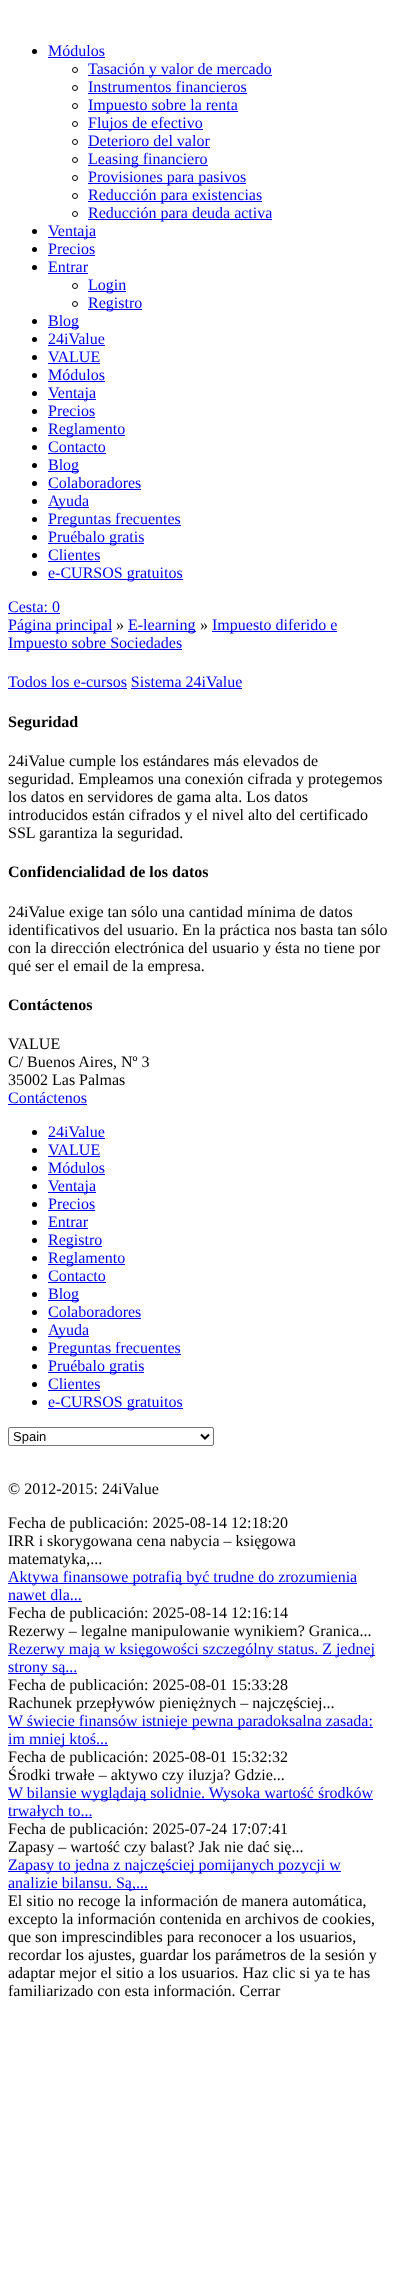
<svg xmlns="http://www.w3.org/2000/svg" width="396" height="2279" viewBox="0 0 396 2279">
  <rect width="100%" height="100%" fill="rgb(255,255,255)"/>
  <circle cx="34.5" cy="51.5" r="2.5" fill="rgb(0,0,0)"/>
  <text x="48" y="56" font-family="Liberation Serif" font-size="16" fill="rgb(0,0,238)">Módulos</text>
  <rect x="48" y="57" width="57" height="1" fill="rgb(0,0,238)"/>
  <circle cx="75" cy="70" r="2.5" fill="none" stroke="rgb(0,0,0)"/>
  <rect x="88" y="75" width="184" height="1" fill="rgb(0,0,238)"/>
  <text x="88" y="74" font-family="Liberation Serif" font-size="16" fill="rgb(0,0,238)">Tasación y valor de mercado</text>
  <circle cx="75" cy="88" r="2.5" fill="none" stroke="rgb(0,0,0)"/>
  <text x="88" y="92" font-family="Liberation Serif" font-size="16" fill="rgb(0,0,238)">Instrumentos financieros</text>
  <rect x="88" y="93" width="159" height="1" fill="rgb(0,0,238)"/>
  <circle cx="75" cy="106" r="2.5" fill="none" stroke="rgb(0,0,0)"/>
  <rect x="88" y="111" width="150" height="1" fill="rgb(0,0,238)"/>
  <text x="88" y="110" font-family="Liberation Serif" font-size="16" fill="rgb(0,0,238)">Impuesto sobre la renta</text>
  <circle cx="75" cy="124" r="2.5" fill="none" stroke="rgb(0,0,0)"/>
  <rect x="88" y="129" width="115" height="1" fill="rgb(0,0,238)"/>
  <text x="88" y="128" font-family="Liberation Serif" font-size="16" fill="rgb(0,0,238)">Flujos de efectivo</text>
  <circle cx="75" cy="142" r="2.5" fill="none" stroke="rgb(0,0,0)"/>
  <text x="88" y="146" font-family="Liberation Serif" font-size="16" fill="rgb(0,0,238)">Deterioro del valor</text>
  <rect x="88" y="147" width="122" height="1" fill="rgb(0,0,238)"/>
  <circle cx="75" cy="160" r="2.5" fill="none" stroke="rgb(0,0,0)"/>
  <rect x="88" y="165" width="120" height="1" fill="rgb(0,0,238)"/>
  <text x="88" y="164" font-family="Liberation Serif" font-size="16" fill="rgb(0,0,238)">Leasing financiero</text>
  <circle cx="75" cy="178" r="2.5" fill="none" stroke="rgb(0,0,0)"/>
  <rect x="88" y="183" width="158" height="1" fill="rgb(0,0,238)"/>
  <text x="88" y="182" font-family="Liberation Serif" font-size="16" fill="rgb(0,0,238)">Provisiones para pasivos</text>
  <circle cx="75" cy="196" r="2.5" fill="none" stroke="rgb(0,0,0)"/>
  <rect x="88" y="201" width="174" height="1" fill="rgb(0,0,238)"/>
  <text x="88" y="200" font-family="Liberation Serif" font-size="16" fill="rgb(0,0,238)">Reducción para existencias</text>
  <circle cx="75" cy="214" r="2.5" fill="none" stroke="rgb(0,0,0)"/>
  <rect x="88" y="219" width="184" height="1" fill="rgb(0,0,238)"/>
  <text x="88" y="218" font-family="Liberation Serif" font-size="16" fill="rgb(0,0,238)">Reducción para deuda activa</text>
  <circle cx="34.5" cy="231.5" r="2.5" fill="rgb(0,0,0)"/>
  <rect x="48" y="237" width="48" height="1" fill="rgb(0,0,238)"/>
  <text x="48" y="236" font-family="Liberation Serif" font-size="16" fill="rgb(0,0,238)">Ventaja</text>
  <circle cx="34.5" cy="249.5" r="2.5" fill="rgb(0,0,0)"/>
  <text x="48" y="254" font-family="Liberation Serif" font-size="16" fill="rgb(0,0,238)">Precios</text>
  <rect x="48" y="255" width="47" height="1" fill="rgb(0,0,238)"/>
  <circle cx="34.5" cy="267.5" r="2.5" fill="rgb(0,0,0)"/>
  <text x="48" y="272" font-family="Liberation Serif" font-size="16" fill="rgb(0,0,238)">Entrar</text>
  <rect x="48" y="273" width="40" height="1" fill="rgb(0,0,238)"/>
  <circle cx="75" cy="286" r="2.5" fill="none" stroke="rgb(0,0,0)"/>
  <rect x="88" y="291" width="38" height="1" fill="rgb(0,0,238)"/>
  <text x="88" y="290" font-family="Liberation Serif" font-size="16" fill="rgb(0,0,238)">Login</text>
  <circle cx="75" cy="304" r="2.5" fill="none" stroke="rgb(0,0,0)"/>
  <rect x="88" y="309" width="54" height="1" fill="rgb(0,0,238)"/>
  <text x="88" y="308" font-family="Liberation Serif" font-size="16" fill="rgb(0,0,238)">Registro</text>
  <circle cx="34.5" cy="321.5" r="2.5" fill="rgb(0,0,0)"/>
  <rect x="48" y="327" width="31" height="1" fill="rgb(0,0,238)"/>
  <text x="48" y="326" font-family="Liberation Serif" font-size="16" fill="rgb(0,0,238)">Blog</text>
  <circle cx="34.5" cy="339.5" r="2.5" fill="rgb(0,0,0)"/>
  <text x="48" y="344" font-family="Liberation Serif" font-size="16" fill="rgb(0,0,238)">24iValue</text>
  <rect x="48" y="345" width="57" height="1" fill="rgb(0,0,238)"/>
  <circle cx="34.5" cy="357.5" r="2.5" fill="rgb(0,0,0)"/>
  <text x="48" y="362" font-family="Liberation Serif" font-size="16" fill="rgb(0,0,238)">VALUE</text>
  <rect x="48" y="363" width="52" height="1" fill="rgb(0,0,238)"/>
  <circle cx="34.5" cy="375.5" r="2.5" fill="rgb(0,0,0)"/>
  <text x="48" y="380" font-family="Liberation Serif" font-size="16" fill="rgb(0,0,238)">Módulos</text>
  <rect x="48" y="381" width="57" height="1" fill="rgb(0,0,238)"/>
  <circle cx="34.5" cy="393.5" r="2.5" fill="rgb(0,0,0)"/>
  <rect x="48" y="399" width="48" height="1" fill="rgb(0,0,238)"/>
  <text x="48" y="398" font-family="Liberation Serif" font-size="16" fill="rgb(0,0,238)">Ventaja</text>
  <circle cx="34.5" cy="411.5" r="2.5" fill="rgb(0,0,0)"/>
  <text x="48" y="416" font-family="Liberation Serif" font-size="16" fill="rgb(0,0,238)">Precios</text>
  <rect x="48" y="417" width="47" height="1" fill="rgb(0,0,238)"/>
  <circle cx="34.5" cy="429.5" r="2.5" fill="rgb(0,0,0)"/>
  <rect x="48" y="435" width="77" height="1" fill="rgb(0,0,238)"/>
  <text x="48" y="434" font-family="Liberation Serif" font-size="16" fill="rgb(0,0,238)">Reglamento</text>
  <circle cx="34.5" cy="447.5" r="2.5" fill="rgb(0,0,0)"/>
  <text x="48" y="452" font-family="Liberation Serif" font-size="16" fill="rgb(0,0,238)">Contacto</text>
  <rect x="48" y="453" width="58" height="1" fill="rgb(0,0,238)"/>
  <circle cx="34.5" cy="465.5" r="2.5" fill="rgb(0,0,0)"/>
  <rect x="48" y="471" width="31" height="1" fill="rgb(0,0,238)"/>
  <text x="48" y="470" font-family="Liberation Serif" font-size="16" fill="rgb(0,0,238)">Blog</text>
  <circle cx="34.5" cy="483.5" r="2.5" fill="rgb(0,0,0)"/>
  <text x="48" y="488" font-family="Liberation Serif" font-size="16" fill="rgb(0,0,238)">Colaboradores</text>
  <rect x="48" y="489" width="93" height="1" fill="rgb(0,0,238)"/>
  <circle cx="34.5" cy="501.5" r="2.5" fill="rgb(0,0,0)"/>
  <rect x="48" y="507" width="41" height="1" fill="rgb(0,0,238)"/>
  <text x="48" y="506" font-family="Liberation Serif" font-size="16" fill="rgb(0,0,238)">Ayuda</text>
  <circle cx="34.5" cy="519.5" r="2.5" fill="rgb(0,0,0)"/>
  <rect x="48" y="525" width="133" height="1" fill="rgb(0,0,238)"/>
  <text x="48" y="524" font-family="Liberation Serif" font-size="16" fill="rgb(0,0,238)">Preguntas frecuentes</text>
  <circle cx="34.5" cy="537.5" r="2.5" fill="rgb(0,0,0)"/>
  <rect x="48" y="543" width="96" height="1" fill="rgb(0,0,238)"/>
  <text x="48" y="542" font-family="Liberation Serif" font-size="16" fill="rgb(0,0,238)">Pruébalo gratis</text>
  <circle cx="34.5" cy="555.5" r="2.5" fill="rgb(0,0,0)"/>
  <text x="48" y="560" font-family="Liberation Serif" font-size="16" fill="rgb(0,0,238)">Clientes</text>
  <rect x="48" y="561" width="52" height="1" fill="rgb(0,0,238)"/>
  <circle cx="34.5" cy="573.5" r="2.5" fill="rgb(0,0,0)"/>
  <rect x="48" y="579" width="135" height="1" fill="rgb(0,0,238)"/>
  <g font-family="Liberation Serif" font-size="16" fill="rgb(0,0,238)">
    <text x="48" y="578">e-CURSOS gratuitos</text>
    <text x="8" y="612">Cesta: 0</text>
  </g>
  <rect x="8" y="613" width="52" height="1" fill="rgb(0,0,238)"/>
  <rect x="8" y="631" width="104" height="1" fill="rgb(0,0,238)"/>
  <text x="8" y="630" font-family="Liberation Serif" font-size="16" fill="rgb(0,0,238)">Página principal</text>
  <text x="116" y="630" font-family="Liberation Serif" font-size="16" fill="rgb(0,0,0)">»</text>
  <rect x="128" y="631" width="68" height="1" fill="rgb(0,0,238)"/>
  <text x="128" y="630" font-family="Liberation Serif" font-size="16" fill="rgb(0,0,238)">E-learning</text>
  <text x="200" y="630" font-family="Liberation Serif" font-size="16" fill="rgb(0,0,0)">»</text>
  <rect x="212" y="631" width="125" height="1" fill="rgb(0,0,238)"/>
  <text x="212" y="630" font-family="Liberation Serif" font-size="16" fill="rgb(0,0,238)">Impuesto diferido e</text>
  <rect x="8" y="649" width="174" height="1" fill="rgb(0,0,238)"/>
  <g font-family="Liberation Serif" font-size="16" fill="rgb(0,0,238)">
    <text x="8" y="648">Impuesto sobre Sociedades</text>
    <text x="8" y="687">Todos los e-cursos Sistema 24iValue</text>
  </g>
  <rect x="8" y="688" width="119" height="1" fill="rgb(0,0,238)"/>
  <rect x="131" y="688" width="111" height="1" fill="rgb(0,0,238)"/>
  <text x="8" y="727" font-family="Liberation Serif" font-size="16" font-weight="bold" fill="rgb(0,0,0)">Seguridad</text>
  <g font-family="Liberation Serif" font-size="16" fill="rgb(0,0,0)">
    <text>
      <tspan x="8" y="766">24iValue cumple los estándares más elevados de</tspan>
      <tspan x="8" y="784">seguridad. Empleamos una conexión cifrada y protegemos</tspan>
      <tspan x="8" y="802">los datos en servidores de gama alta. Los datos</tspan>
      <tspan x="8" y="820">introducidos están cifrados y el nivel alto del certificado</tspan>
      <tspan x="8" y="838">SSL garantiza la seguridad.</tspan>
    </text>
  </g>
  <text x="8" y="877" font-family="Liberation Serif" font-size="16" font-weight="bold" fill="rgb(0,0,0)">Confidencialidad de los datos</text>
  <g font-family="Liberation Serif" font-size="16" fill="rgb(0,0,0)">
    <text>
      <tspan x="8" y="917">24iValue exige tan sólo una cantidad mínima de datos</tspan>
      <tspan x="8" y="935">identificativos del usuario. En la práctica nos basta tan sólo</tspan>
      <tspan x="8" y="953">con la dirección electrónica del usuario y ésta no tiene por</tspan>
      <tspan x="8" y="971">qué ser el email de la empresa.</tspan>
    </text>
  </g>
  <text x="8" y="1010" font-family="Liberation Serif" font-size="16" font-weight="bold" fill="rgb(0,0,0)">Contáctenos</text>
  <g font-family="Liberation Serif" font-size="16" fill="rgb(0,0,0)">
    <text>
      <tspan x="8" y="1049">VALUE</tspan>
      <tspan x="8" y="1067">C/ Buenos Aires, Nº 3</tspan>
      <tspan x="8" y="1085">35002 Las Palmas</tspan>
    </text>
  </g>
  <text x="8" y="1103" font-family="Liberation Serif" font-size="16" fill="rgb(0,0,238)">Contáctenos</text>
  <rect x="8" y="1104" width="79" height="1" fill="rgb(0,0,238)"/>
  <circle cx="34.5" cy="1132.5" r="2.5" fill="rgb(0,0,0)"/>
  <text x="48" y="1137" font-family="Liberation Serif" font-size="16" fill="rgb(0,0,238)">24iValue</text>
  <rect x="48" y="1138" width="57" height="1" fill="rgb(0,0,238)"/>
  <circle cx="34.5" cy="1150.5" r="2.5" fill="rgb(0,0,0)"/>
  <text x="48" y="1155" font-family="Liberation Serif" font-size="16" fill="rgb(0,0,238)">VALUE</text>
  <rect x="48" y="1156" width="52" height="1" fill="rgb(0,0,238)"/>
  <circle cx="34.5" cy="1168.5" r="2.5" fill="rgb(0,0,0)"/>
  <text x="48" y="1173" font-family="Liberation Serif" font-size="16" fill="rgb(0,0,238)">Módulos</text>
  <rect x="48" y="1174" width="57" height="1" fill="rgb(0,0,238)"/>
  <circle cx="34.5" cy="1186.5" r="2.5" fill="rgb(0,0,0)"/>
  <rect x="48" y="1192" width="48" height="1" fill="rgb(0,0,238)"/>
  <text x="48" y="1191" font-family="Liberation Serif" font-size="16" fill="rgb(0,0,238)">Ventaja</text>
  <circle cx="34.5" cy="1204.5" r="2.5" fill="rgb(0,0,0)"/>
  <text x="48" y="1209" font-family="Liberation Serif" font-size="16" fill="rgb(0,0,238)">Precios</text>
  <rect x="48" y="1210" width="47" height="1" fill="rgb(0,0,238)"/>
  <circle cx="34.5" cy="1222.5" r="2.5" fill="rgb(0,0,0)"/>
  <text x="48" y="1227" font-family="Liberation Serif" font-size="16" fill="rgb(0,0,238)">Entrar</text>
  <rect x="48" y="1228" width="40" height="1" fill="rgb(0,0,238)"/>
  <circle cx="34.5" cy="1240.5" r="2.5" fill="rgb(0,0,0)"/>
  <rect x="48" y="1246" width="54" height="1" fill="rgb(0,0,238)"/>
  <text x="48" y="1245" font-family="Liberation Serif" font-size="16" fill="rgb(0,0,238)">Registro</text>
  <circle cx="34.5" cy="1258.5" r="2.5" fill="rgb(0,0,0)"/>
  <rect x="48" y="1264" width="77" height="1" fill="rgb(0,0,238)"/>
  <text x="48" y="1263" font-family="Liberation Serif" font-size="16" fill="rgb(0,0,238)">Reglamento</text>
  <circle cx="34.5" cy="1276.5" r="2.5" fill="rgb(0,0,0)"/>
  <text x="48" y="1281" font-family="Liberation Serif" font-size="16" fill="rgb(0,0,238)">Contacto</text>
  <rect x="48" y="1282" width="58" height="1" fill="rgb(0,0,238)"/>
  <circle cx="34.5" cy="1294.5" r="2.5" fill="rgb(0,0,0)"/>
  <rect x="48" y="1300" width="31" height="1" fill="rgb(0,0,238)"/>
  <text x="48" y="1299" font-family="Liberation Serif" font-size="16" fill="rgb(0,0,238)">Blog</text>
  <circle cx="34.5" cy="1312.5" r="2.5" fill="rgb(0,0,0)"/>
  <text x="48" y="1317" font-family="Liberation Serif" font-size="16" fill="rgb(0,0,238)">Colaboradores</text>
  <rect x="48" y="1318" width="93" height="1" fill="rgb(0,0,238)"/>
  <circle cx="34.5" cy="1330.5" r="2.5" fill="rgb(0,0,0)"/>
  <rect x="48" y="1336" width="41" height="1" fill="rgb(0,0,238)"/>
  <text x="48" y="1335" font-family="Liberation Serif" font-size="16" fill="rgb(0,0,238)">Ayuda</text>
  <circle cx="34.5" cy="1348.5" r="2.5" fill="rgb(0,0,0)"/>
  <rect x="48" y="1354" width="133" height="1" fill="rgb(0,0,238)"/>
  <text x="48" y="1353" font-family="Liberation Serif" font-size="16" fill="rgb(0,0,238)">Preguntas frecuentes</text>
  <circle cx="34.5" cy="1366.5" r="2.5" fill="rgb(0,0,0)"/>
  <rect x="48" y="1372" width="96" height="1" fill="rgb(0,0,238)"/>
  <text x="48" y="1371" font-family="Liberation Serif" font-size="16" fill="rgb(0,0,238)">Pruébalo gratis</text>
  <circle cx="34.5" cy="1384.5" r="2.5" fill="rgb(0,0,0)"/>
  <text x="48" y="1389" font-family="Liberation Serif" font-size="16" fill="rgb(0,0,238)">Clientes</text>
  <rect x="48" y="1390" width="52" height="1" fill="rgb(0,0,238)"/>
  <circle cx="34.5" cy="1402.5" r="2.5" fill="rgb(0,0,0)"/>
  <rect x="48" y="1408" width="135" height="1" fill="rgb(0,0,238)"/>
  <text x="48" y="1407" font-family="Liberation Serif" font-size="16" fill="rgb(0,0,238)">e-CURSOS gratuitos</text>
  <rect x="8.5" y="1427.5" width="205" height="18" rx="1.5" fill="none" stroke="rgb(118,118,118)"/>
  <path d="M201 1434.5L205 1438.5L209 1434.5" fill="none" stroke="rgb(0,0,0)" stroke-width="2"/>
  <text x="13" y="1441" font-family="Liberation Sans" font-size="13" fill="rgb(0,0,0)">Spain</text>
  <g font-family="Liberation Serif" font-size="16" fill="rgb(0,0,0)">
    <text x="8" y="1494">© 2012-2015: 24iValue</text>
    <text>
      <tspan x="8" y="1528">Fecha de publicación: 2025-08-14 12:18:20</tspan>
      <tspan x="8" y="1546">IRR i skorygowana cena nabycia – księgowa</tspan>
      <tspan x="8" y="1564">matematyka,...</tspan>
    </text>
  </g>
  <rect x="8" y="1583" width="349" height="1" fill="rgb(0,0,238)"/>
  <g font-family="Liberation Serif" font-size="16" fill="rgb(0,0,238)">
    <text>
      <tspan x="8" y="1582">Aktywa finansowe potrafią być trudne do zrozumienia</tspan>
      <tspan x="8" y="1600">nawet dla...</tspan>
    </text>
  </g>
  <rect x="8" y="1601" width="74" height="1" fill="rgb(0,0,238)"/>
  <g font-family="Liberation Serif" font-size="16" fill="rgb(0,0,0)">
    <text>
      <tspan x="8" y="1618">Fecha de publicación: 2025-08-14 12:16:14</tspan>
      <tspan x="8" y="1636">Rezerwy – legalne manipulowanie wynikiem? Granica...</tspan>
    </text>
  </g>
  <rect x="8" y="1655" width="367" height="1" fill="rgb(0,0,238)"/>
  <text x="8" y="1654" font-family="Liberation Serif" font-size="16" fill="rgb(0,0,238)">Rezerwy mają w księgowości szczególny status. Z jednej</text>
  <rect x="8" y="1673" width="69" height="1" fill="rgb(0,0,238)"/>
  <text x="8" y="1672" font-family="Liberation Serif" font-size="16" fill="rgb(0,0,238)">strony są...</text>
  <g font-family="Liberation Serif" font-size="16" fill="rgb(0,0,0)">
    <text>
      <tspan x="8" y="1690">Fecha de publicación: 2025-08-01 15:33:28</tspan>
      <tspan x="8" y="1708">Rachunek przepływów pieniężnych – najczęściej...</tspan>
    </text>
  </g>
  <rect x="8" y="1727" width="365" height="1" fill="rgb(0,0,238)"/>
  <text x="8" y="1726" font-family="Liberation Serif" font-size="16" fill="rgb(0,0,238)">W świecie finansów istnieje pewna paradoksalna zasada:</text>
  <rect x="8" y="1745" width="100" height="1" fill="rgb(0,0,238)"/>
  <text x="8" y="1744" font-family="Liberation Serif" font-size="16" fill="rgb(0,0,238)">im mniej ktoś...</text>
  <g font-family="Liberation Serif" font-size="16" fill="rgb(0,0,0)">
    <text>
      <tspan x="8" y="1762">Fecha de publicación: 2025-08-01 15:32:32</tspan>
      <tspan x="8" y="1780">Środki trwałe – aktywo czy iluzja? Gdzie...</tspan>
    </text>
  </g>
  <rect x="8" y="1799" width="365" height="1" fill="rgb(0,0,238)"/>
  <text x="8" y="1798" font-family="Liberation Serif" font-size="16" fill="rgb(0,0,238)">W bilansie wyglądają solidnie. Wysoka wartość środków</text>
  <rect x="8" y="1817" width="84" height="1" fill="rgb(0,0,238)"/>
  <text x="8" y="1816" font-family="Liberation Serif" font-size="16" fill="rgb(0,0,238)">trwałych to...</text>
  <g font-family="Liberation Serif" font-size="16" fill="rgb(0,0,0)">
    <text>
      <tspan x="8" y="1834">Fecha de publicación: 2025-07-24 17:07:41</tspan>
      <tspan x="8" y="1852">Zapasy – wartość czy balast? Jak nie dać się...</tspan>
    </text>
  </g>
  <rect x="8" y="1871" width="333" height="1" fill="rgb(0,0,238)"/>
  <text x="8" y="1870" font-family="Liberation Serif" font-size="16" fill="rgb(0,0,238)">Zapasy to jedna z najczęściej pomijanych pozycji w</text>
  <rect x="8" y="1889" width="140" height="1" fill="rgb(0,0,238)"/>
  <text x="8" y="1888" font-family="Liberation Serif" font-size="16" fill="rgb(0,0,238)">analizie bilansu. Są,...</text>
  <g font-family="Liberation Serif" font-size="16" fill="rgb(0,0,0)">
    <text>
      <tspan x="8" y="1906">El sitio no recoge la información de manera automática,</tspan>
      <tspan x="8" y="1924">excepto la información contenida en archivos de cookies,</tspan>
      <tspan x="8" y="1942">que son imprescindibles para reconocer a los usuarios,</tspan>
      <tspan x="8" y="1960">recordar los ajustes, guardar los parámetros de la sesión y</tspan>
      <tspan x="8" y="1978">adaptar mejor el sitio a los usuarios. Haz clic si ya te has</tspan>
      <tspan x="8" y="1996">familiarizado con esta información. Cerrar</tspan>
    </text>
  </g>
</svg>
